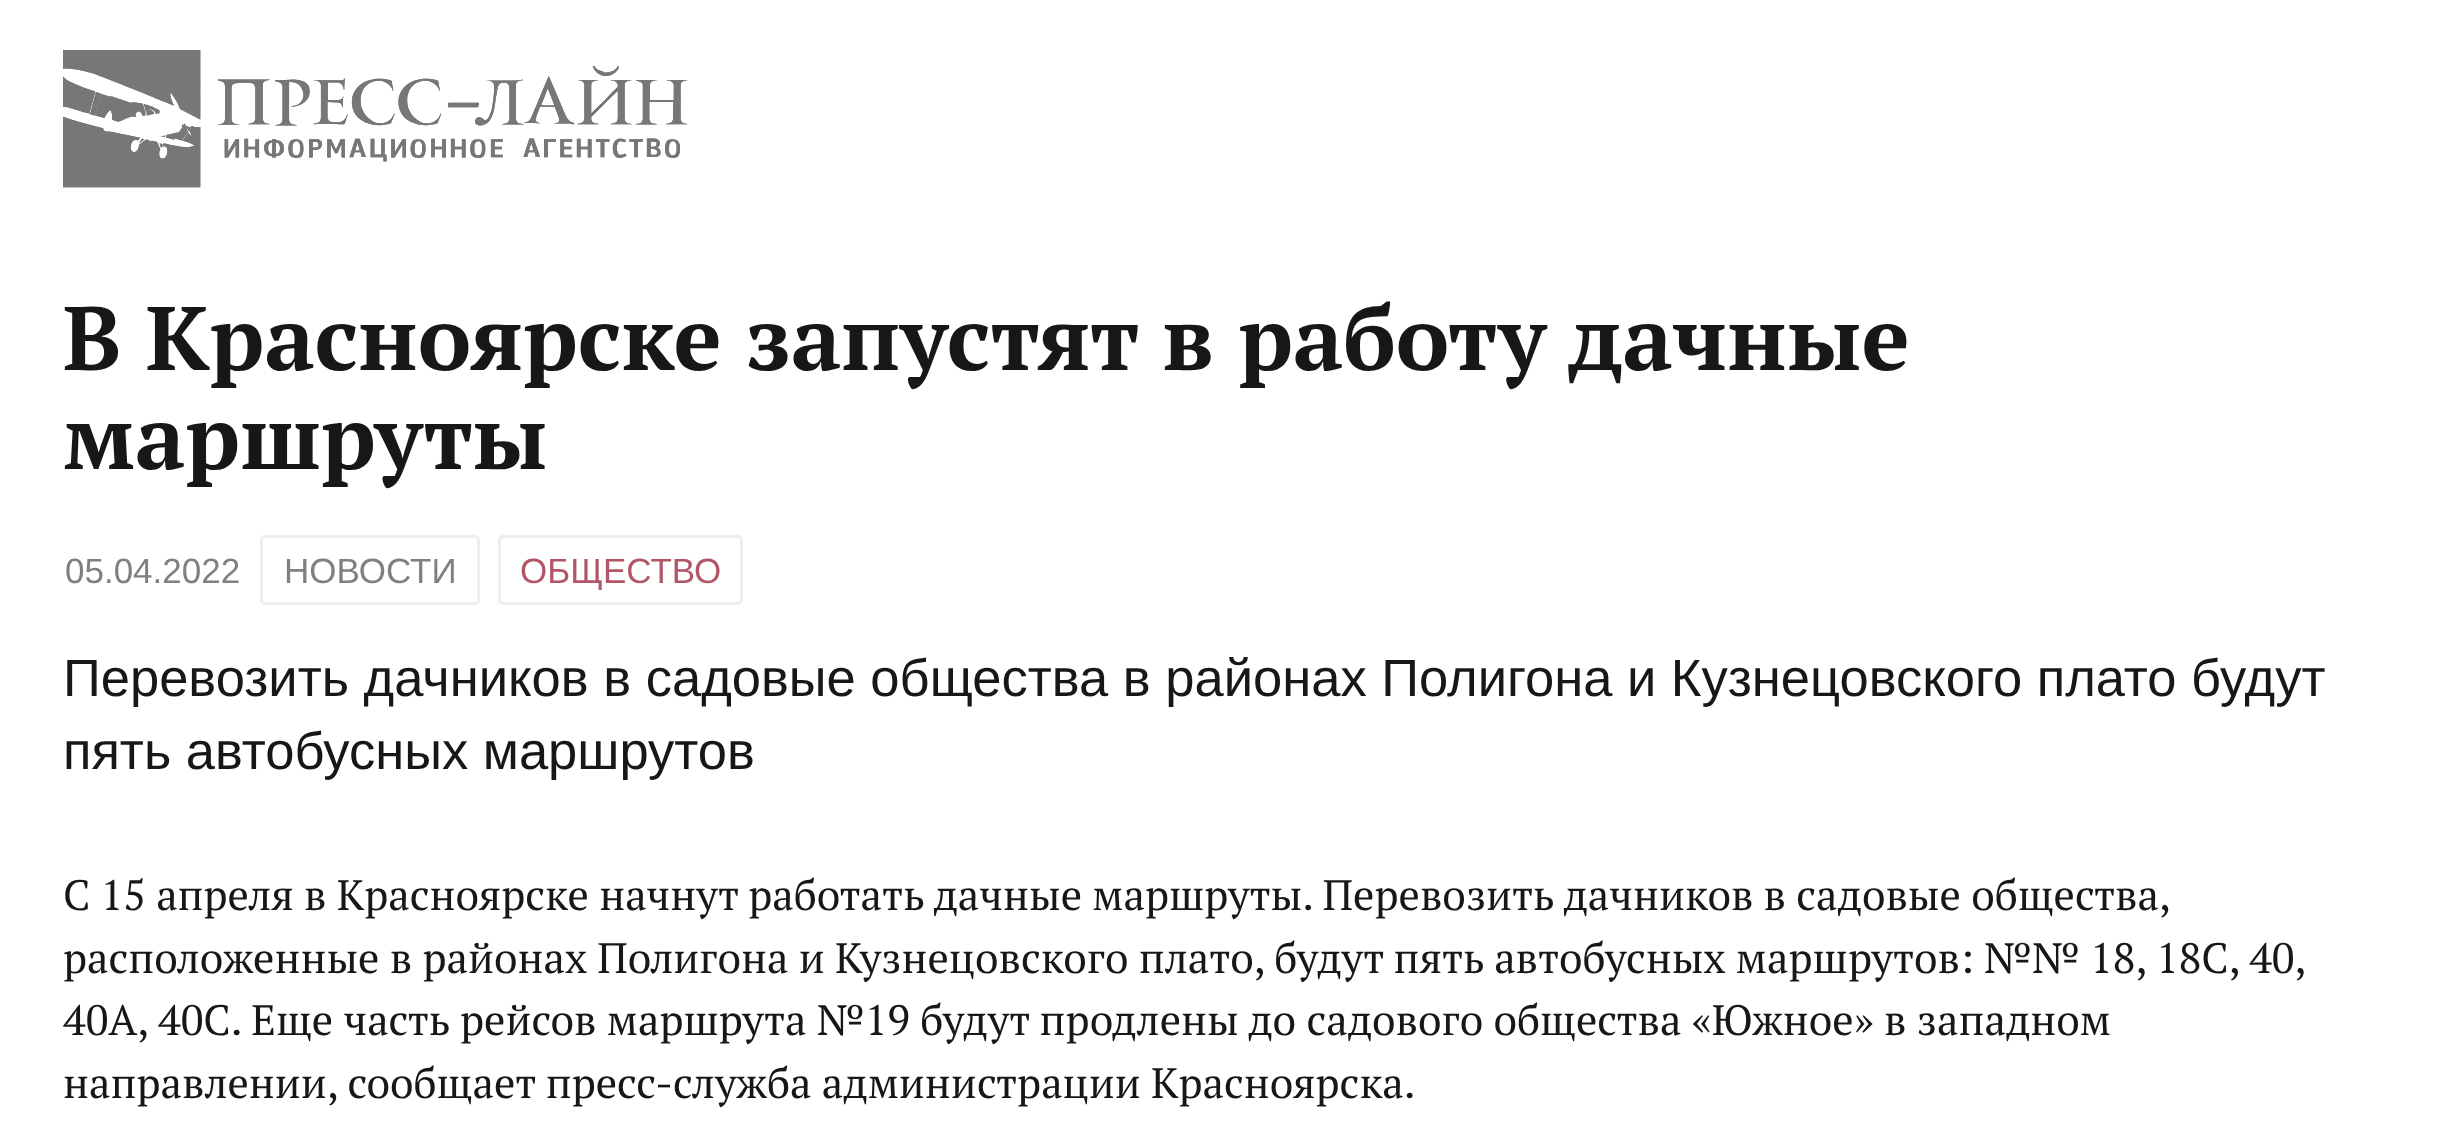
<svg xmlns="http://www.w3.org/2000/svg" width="2438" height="1128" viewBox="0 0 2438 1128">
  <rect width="100%" height="100%" fill="rgb(255,255,255)"/>
  <image x="63" y="50" width="625" height="138" href="pic1.png"/>
  <g font-family="PT Serif" font-size="90" font-weight="bold" fill="rgb(23,23,23)">
    <text>
      <tspan x="63" y="370">В Красноярске запустят в работу дачные</tspan>
      <tspan x="63" y="469">маршруты</tspan>
    </text>
  </g>
  <text x="65" y="583" font-family="Liberation Sans" font-size="35" fill="rgb(128,128,128)">05.04.2022</text>
  <rect x="261.5" y="536.5" width="217" height="67" rx="3.5" fill="none" stroke="rgb(238,238,238)" stroke-width="3"/>
  <text x="284" y="583" font-family="Liberation Sans" font-size="35" fill="rgb(128,128,128)">НОВОСТИ</text>
  <rect x="499.5" y="536.5" width="242" height="67" rx="3.5" fill="none" stroke="rgb(238,238,238)" stroke-width="3"/>
  <text x="520" y="583" font-family="Liberation Sans" font-size="35" fill="rgb(178,86,101)">ОБЩЕСТВО</text>
  <g font-family="Liberation Sans" font-size="52.5" fill="rgb(23,23,23)">
    <text>
      <tspan x="63" y="696">Перевозить дачников в садовые общества в районах Полигона и Кузнецовского плато будут</tspan>
      <tspan x="63" y="769">пять автобусных маршрутов</tspan>
    </text>
  </g>
  <g font-family="PT Serif" font-size="42.5" fill="rgb(23,23,23)">
    <text>
      <tspan x="63" y="910" word-spacing="-0.1">С 15 апреля в Красноярске начнут работать дачные маршруты. Перевозить дачников в садовые общества,</tspan>
      <tspan x="63" y="973" word-spacing="-0.1">расположенные в районах Полигона и Кузнецовского плато, будут пять автобусных маршрутов: №№ 18, 18С, 40,</tspan>
      <tspan x="63" y="1035">40А, 40С. Еще часть рейсов маршрута №19 будут продлены до садового общества «Южное» в западном</tspan>
      <tspan x="63" y="1098">направлении, сообщает пресс-служба администрации Красноярска.</tspan>
    </text>
  </g>
</svg>
